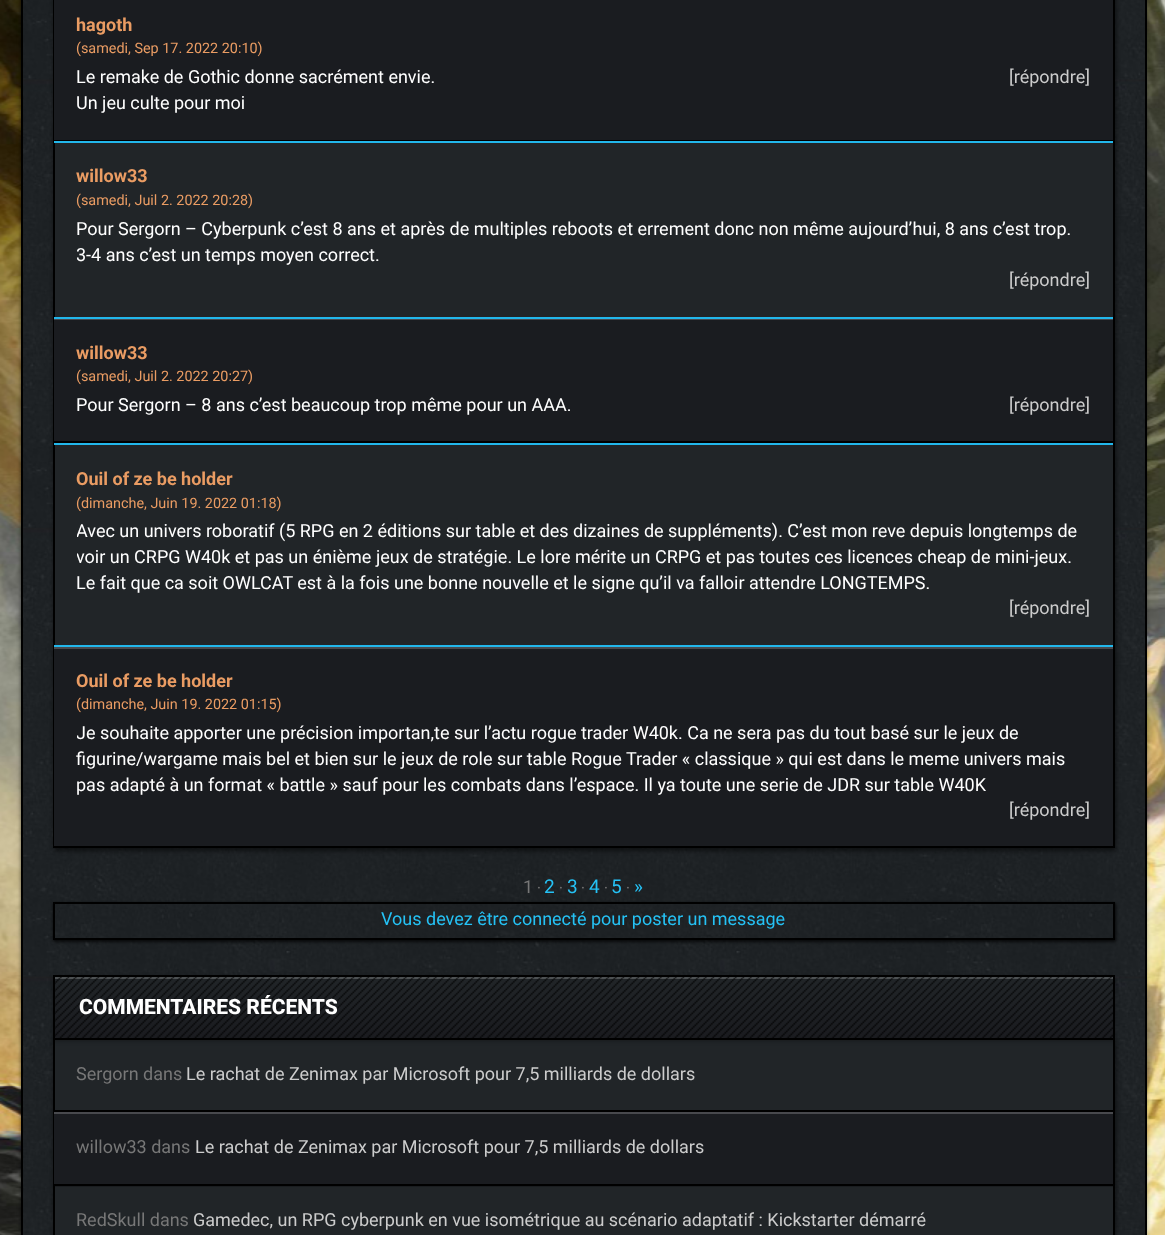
<svg xmlns="http://www.w3.org/2000/svg" width="1165" height="1235" viewBox="0 0 1165 1235">
  <defs>
    <clipPath id="clip1"><rect x="77" y="218" width="1014" height="76"/></clipPath>
    <clipPath id="clip2"><rect x="77" y="519" width="1014" height="104"/></clipPath>
    <clipPath id="clip3"><rect x="77" y="722" width="1014" height="102"/></clipPath>
    <clipPath id="clip4"><path d="M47 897H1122V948H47ZM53 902H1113V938H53Z" clip-rule="evenodd"/></clipPath>
    <linearGradient id="g1" gradientUnits="userSpaceOnUse" x1="584" y1="1038" x2="584" y2="977"><stop offset="0" stop-color="rgb(26,27,31)"/><stop offset="1" stop-color="rgb(33,37,40)"/></linearGradient>
  </defs>
  <rect width="100%" height="100%" fill="rgb(255,255,255)"/>
  <image x="0" y="0" width="1165" height="1235" href="pic1.png"/>
  <rect x="21" y="-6" width="1125" height="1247" fill="rgba(0,0,0,0.5)" filter="blur(2px)"/>
  <image x="23" y="0" width="1122" height="1235" href="pic2.png"/>
  <rect x="1145" y="0" width="2" height="1235" fill="rgb(0,0,0)"/>
  <rect x="21" y="0" width="2" height="1235" fill="rgb(0,0,0)"/>
  <rect x="54" y="-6" width="1062" height="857" fill="rgba(0,0,0,0.5)" filter="blur(2px)"/>
  <rect x="55" y="143" width="1058" height="502" fill="rgb(33,37,40)"/>
  <rect x="54" y="-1" width="1060" height="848" fill="none" stroke="rgb(0,0,0)" stroke-width="2"/>
  <rect x="54" y="0" width="1059" height="140" fill="rgb(26,28,32)"/>
  <rect x="54" y="140" width="1059" height="1" fill="rgb(0,0,0)"/>
  <text x="76" y="31" font-family="Roboto" font-size="18" font-weight="bold" fill="rgb(234,156,99)">hagoth</text>
  <text x="76" y="53" font-family="Roboto" font-size="14.4" fill="rgb(234,156,99)">(samedi, Sep 17. 2022 20:10)</text>
  <g font-family="Roboto" font-size="18" fill="rgb(255,255,255)">
    <text>
      <tspan x="76" y="83">Le remake de Gothic donne sacrément envie.</tspan>
      <tspan x="76" y="109">Un jeu culte pour moi</tspan>
    </text>
  </g>
  <text x="1009" y="83" font-family="Roboto" font-size="18" fill="rgb(204,204,204)">[répondre]</text>
  <rect x="54" y="141" width="1059" height="2" fill="rgb(34,183,235)"/>
  <text x="76" y="182" font-family="Roboto" font-size="18" font-weight="bold" fill="rgb(234,156,99)">willow33</text>
  <text x="76" y="205" font-family="Roboto" font-size="14.4" fill="rgb(234,156,99)">(samedi, Juil 2. 2022 20:28)</text>
  <text x="76" y="235" font-family="Roboto" font-size="18" fill="rgb(255,255,255)">Pour Sergorn – Cyberpunk c’est 8 ans et après de multiples reboots et errement donc non même aujourd’hui, 8 ans c’est trop.</text>
  <g clip-path="url(#clip1)">
    <text x="76" y="261" font-family="Roboto" font-size="18" fill="rgb(255,255,255)">3-4 ans c’est un temps moyen correct.</text>
  </g>
  <text x="1009" y="286" font-family="Roboto" font-size="18" fill="rgb(204,204,204)">[répondre]</text>
  <rect x="54" y="320" width="1059" height="121" fill="rgb(26,28,32)"/>
  <rect x="54" y="319" width="1059" height="1" fill="rgb(72,73,77)"/>
  <rect x="54" y="317" width="1059" height="2" fill="rgb(34,183,235)"/>
  <rect x="54" y="441" width="1059" height="2" fill="rgb(0,0,0)"/>
  <text x="76" y="359" font-family="Roboto" font-size="18" font-weight="bold" fill="rgb(234,156,99)">willow33</text>
  <text x="76" y="381" font-family="Roboto" font-size="14.4" fill="rgb(234,156,99)">(samedi, Juil 2. 2022 20:27)</text>
  <text x="76" y="411" font-family="Roboto" font-size="18" fill="rgb(255,255,255)">Pour Sergorn – 8 ans c’est beaucoup trop même pour un AAA.</text>
  <text x="1009" y="411" font-family="Roboto" font-size="18" fill="rgb(204,204,204)">[répondre]</text>
  <rect x="54" y="443" width="1059" height="2" fill="rgb(34,183,235)"/>
  <text x="76" y="485" font-family="Roboto" font-size="18" font-weight="bold" fill="rgb(234,156,99)">Ouil of ze be holder</text>
  <text x="76" y="508" font-family="Roboto" font-size="14.4" fill="rgb(234,156,99)">(dimanche, Juin 19. 2022 01:18)</text>
  <g clip-path="url(#clip2)">
    <text x="76" y="537" font-family="Roboto" font-size="18" fill="rgb(255,255,255)">Avec un univers roboratif</text>
  </g>
  <text x="279" y="537" font-family="Roboto" font-size="18" fill="rgb(255,255,255)">(5 RPG en 2 éditions sur table et des dizaines de suppléments). C’est mon reve depuis longtemps de</text>
  <g clip-path="url(#clip2)">
    <text x="76" y="563" font-family="Roboto" font-size="18" fill="rgb(255,255,255)">voir un CRPG W40k et pas un énième jeux de stratégie. Le lore mérite un CRPG et pas toutes ces licences cheap de mini-jeux.</text>
  </g>
  <text x="76" y="589" font-family="Roboto" font-size="18" fill="rgb(255,255,255)">Le fait que ca soit OWLCAT est à la fois une bonne nouvelle et le signe qu’il va falloir attendre LONGTEMPS.</text>
  <text x="1009" y="614" font-family="Roboto" font-size="18" fill="rgb(204,204,204)">[répondre]</text>
  <rect x="54" y="649" width="1059" height="197" fill="rgb(26,28,32)"/>
  <rect x="54" y="647" width="1059" height="2" fill="rgb(72,73,77)"/>
  <rect x="54" y="645" width="1059" height="2" fill="rgb(34,183,235)"/>
  <text x="76" y="687" font-family="Roboto" font-size="18" font-weight="bold" fill="rgb(234,156,99)">Ouil of ze be holder</text>
  <text x="76" y="709" font-family="Roboto" font-size="14.4" fill="rgb(234,156,99)">(dimanche, Juin 19. 2022 01:15)</text>
  <g clip-path="url(#clip3)">
    <text x="76" y="739" font-family="Roboto" font-size="18" fill="rgb(255,255,255)">Je souhaite apporter une précision importan,te sur l’actu rogue trader W40k. Ca ne sera pas du tout basé sur le jeux de</text>
  </g>
  <g font-family="Roboto" font-size="18" fill="rgb(255,255,255)">
    <text>
      <tspan x="76" y="765">figurine/wargame mais bel et bien sur le jeux de role sur table Rogue Trader « classique » qui est dans le meme univers mais</tspan>
      <tspan x="76" y="791">pas adapté à un format « battle » sauf pour les combats dans l’espace. Il ya toute une serie de JDR sur table W40K</tspan>
    </text>
  </g>
  <text x="1009" y="816" font-family="Roboto" font-size="18" fill="rgb(204,204,204)">[répondre]</text>
  <text x="523" y="893" font-family="Roboto" font-size="18" fill="rgb(119,119,119)">1</text>
  <text x="537" y="893" font-family="Roboto" font-size="15" fill="rgb(119,119,119)">·</text>
  <text x="544" y="893" font-family="Roboto" font-size="19" fill="rgb(37,194,245)">2</text>
  <text x="559" y="893" font-family="Roboto" font-size="15" fill="rgb(119,119,119)">·</text>
  <text x="567" y="893" font-family="Roboto" font-size="19" fill="rgb(37,194,245)">3</text>
  <text x="581" y="893" font-family="Roboto" font-size="15" fill="rgb(119,119,119)">·</text>
  <text x="589" y="893" font-family="Roboto" font-size="19" fill="rgb(37,194,245)">4</text>
  <text x="604" y="893" font-family="Roboto" font-size="15" fill="rgb(119,119,119)">·</text>
  <text x="611" y="893" font-family="Roboto" font-size="19" fill="rgb(37,194,245)">5</text>
  <text x="626" y="893" font-family="Roboto" font-size="15" fill="rgb(119,119,119)">·</text>
  <text x="634" y="893" font-family="Roboto" font-size="19" fill="rgb(37,194,245)">»</text>
  <g clip-path="url(#clip4)">
    <rect x="53" y="903" width="1063" height="39" fill="rgba(0,0,0,0.7)" filter="blur(1.5px)"/>
  </g>
  <rect x="53" y="902" width="1062" height="2" fill="rgb(0,0,0)"/>
  <rect x="1113" y="902" width="2" height="37" fill="rgb(0,0,0)"/>
  <rect x="53" y="938" width="1062" height="2" fill="rgb(0,0,0)"/>
  <rect x="53" y="902" width="2" height="37" fill="rgb(0,0,0)"/>
  <text x="381" y="925" font-family="Roboto" font-size="18" fill="rgb(37,194,245)">Vous devez être connecté pour poster un message</text>
  <rect x="54" y="1041" width="1062" height="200" fill="rgba(0,0,0,0.5)" filter="blur(2px)"/>
  <rect x="54" y="1039" width="1060" height="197" fill="rgb(33,37,40)" stroke="rgb(0,0,0)" stroke-width="2"/>
  <rect x="53" y="977" width="1062" height="64" fill="rgba(0,0,0,0.3)" filter="blur(2px)"/>
  <rect x="55" y="979" width="1058" height="59" fill="url(#g1)"/>
  <rect x="54" y="977" width="1059" height="2" fill="rgb(77,81,83)"/>
  <rect x="54" y="976" width="1060" height="63" fill="none" stroke="rgb(0,0,0)" stroke-width="2"/>
  <image x="55" y="977" width="1058" height="61" href="pic3.png"/>
  <text x="79" y="1014" font-family="Roboto" font-size="21" font-weight="800" fill="rgb(255,255,255)">COMMENTAIRES RÉCENTS</text>
  <text x="76" y="1080" font-family="Roboto" font-size="18" fill="rgb(119,119,119)">Sergorn dans</text>
  <text x="186" y="1080" font-family="Roboto" font-size="18" fill="rgb(204,204,204)">Le rachat de Zenimax par Microsoft pour 7,5 milliards de dollars</text>
  <rect x="54" y="1114" width="1059" height="70" fill="rgb(26,28,32)"/>
  <rect x="54" y="1112" width="1059" height="2" fill="rgb(72,73,77)"/>
  <rect x="54" y="1110" width="1059" height="2" fill="rgb(0,0,0)"/>
  <rect x="54" y="1184" width="1059" height="2" fill="rgb(0,0,0)"/>
  <text x="76" y="1153" font-family="Roboto" font-size="18" fill="rgb(119,119,119)">willow33 dans</text>
  <text x="195" y="1153" font-family="Roboto" font-size="18" fill="rgb(204,204,204)">Le rachat de Zenimax par Microsoft pour 7,5 milliards de dollars</text>
  <rect x="54" y="1186" width="1059" height="1" fill="rgba(0,0,0,0.2)"/>
  <text x="76" y="1226" font-family="Roboto" font-size="18" fill="rgb(119,119,119)">RedSkull dans</text>
  <text x="193" y="1226" font-family="Roboto" font-size="18" fill="rgb(204,204,204)">Gamedec, un RPG cyberpunk en vue isométrique au scénario adaptatif : Kickstarter démarré</text>
</svg>
